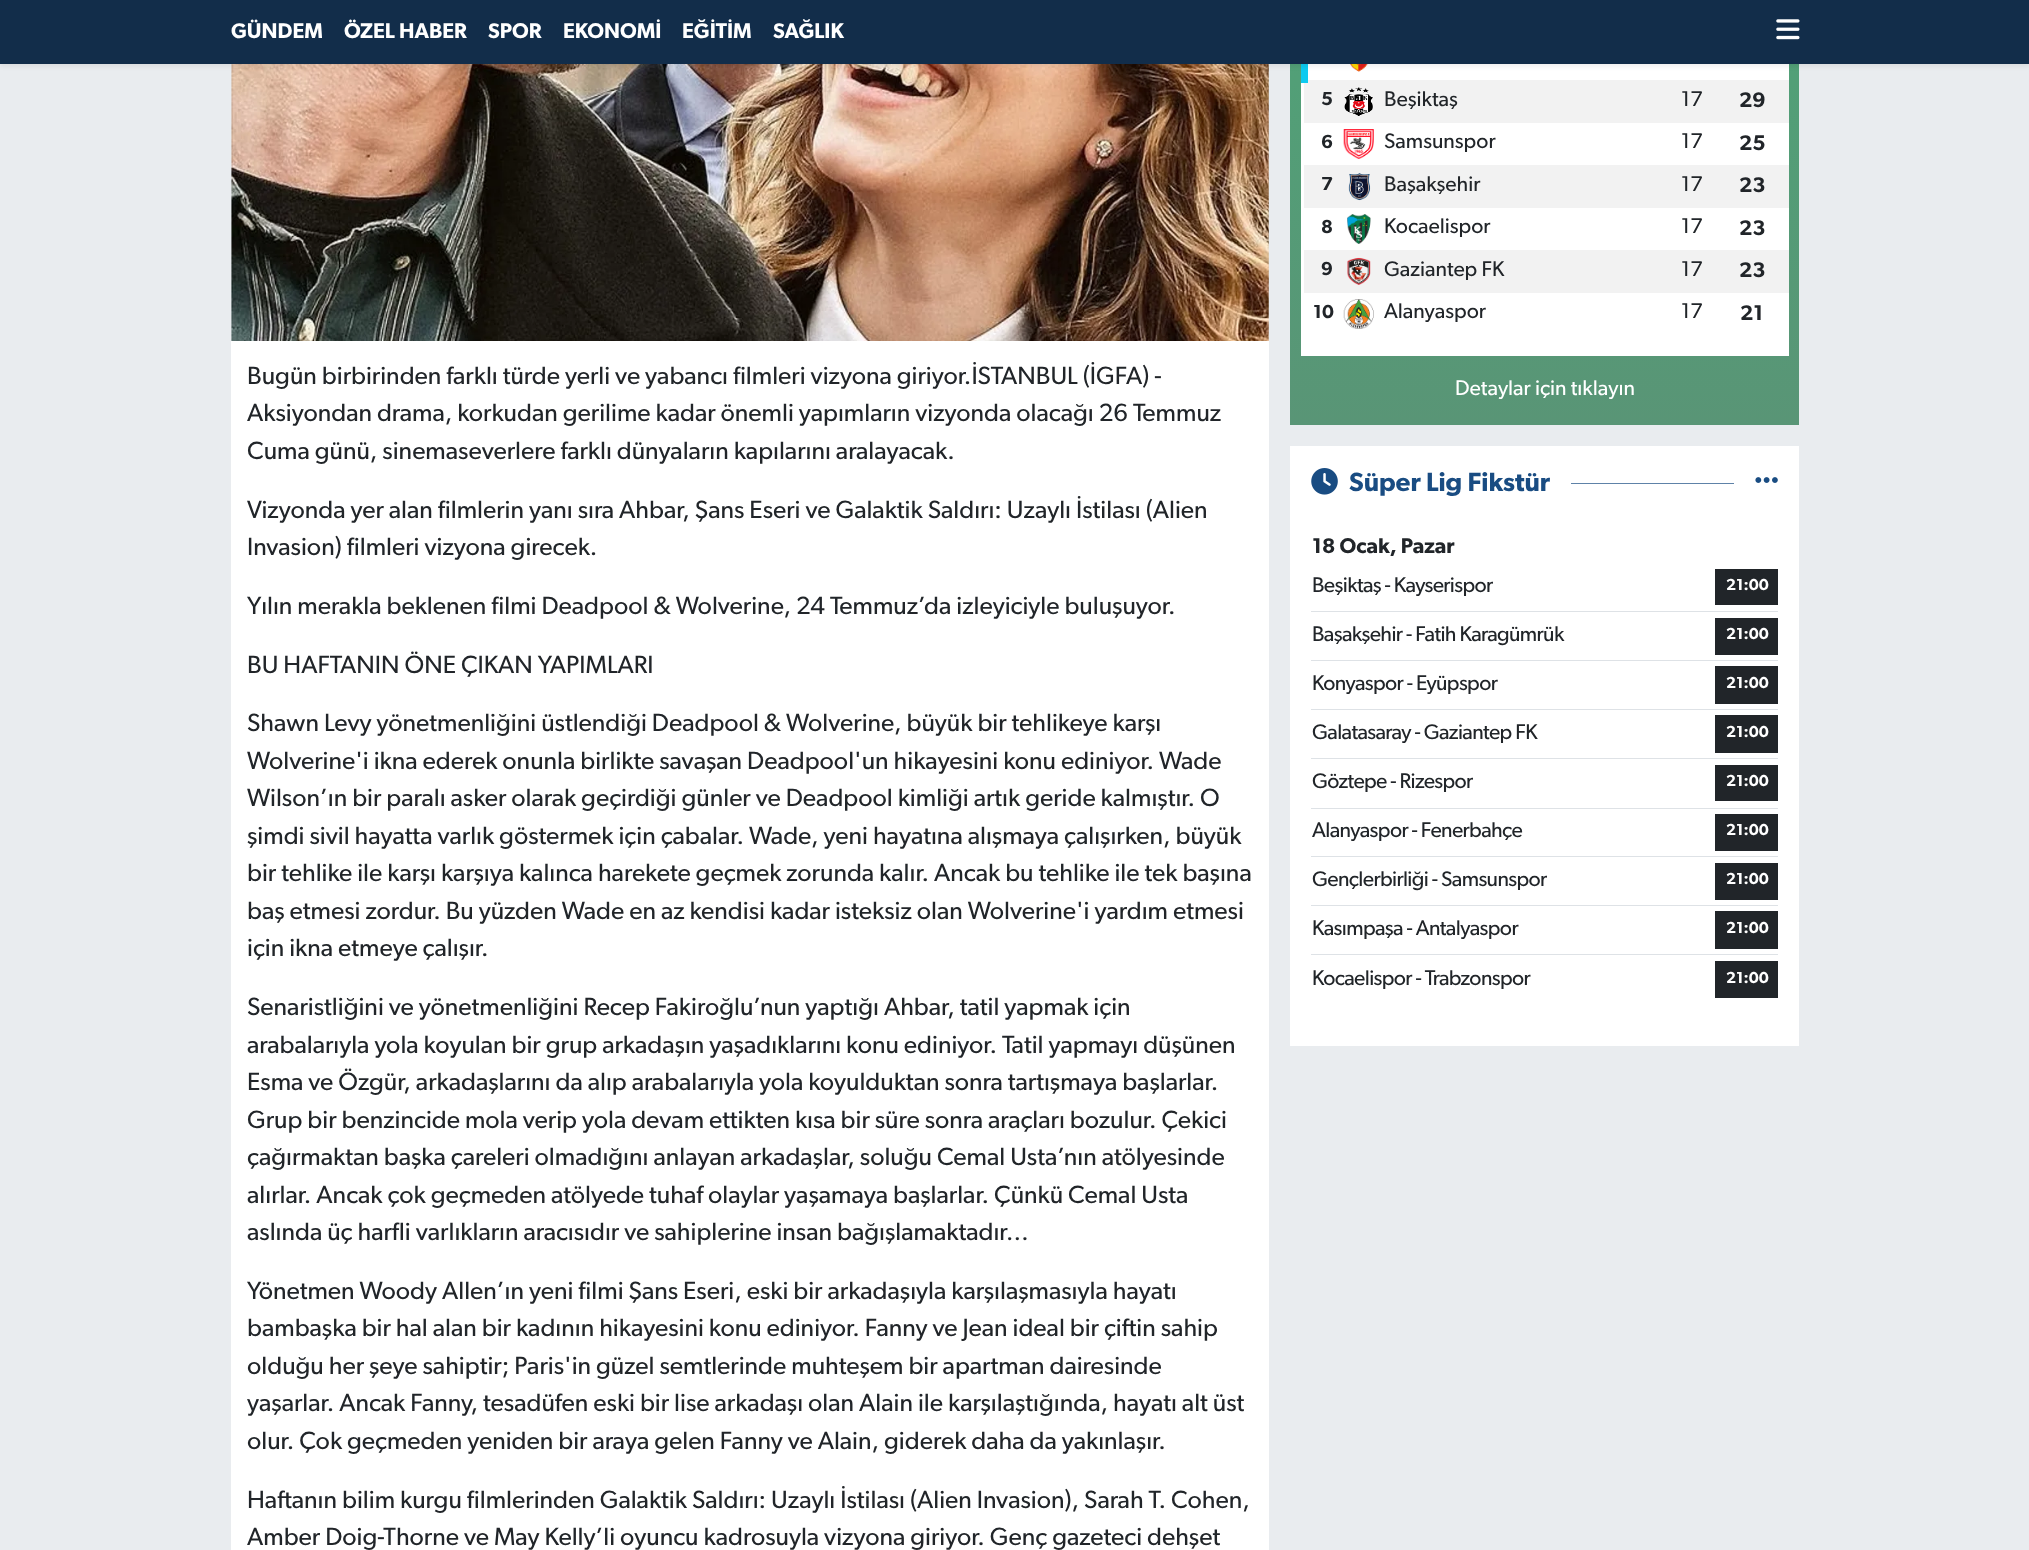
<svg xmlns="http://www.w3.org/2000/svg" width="2029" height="1550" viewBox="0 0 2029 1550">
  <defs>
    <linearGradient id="g1" gradientUnits="userSpaceOnUse" x1="1544" y1="-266" x2="1544" y2="425"><stop offset="0" stop-color="rgb(75,169,120)"/><stop offset="1" stop-color="rgb(89,149,118)"/></linearGradient>
  </defs>
  <rect width="100%" height="100%" fill="rgb(233,236,239)"/>
  <image x="231" y="64" width="1038" height="277" href="pic2.png"/>
  <rect x="1290" y="64" width="509" height="361" fill="url(#g1)"/>
  <rect x="1301" y="64" width="488" height="292" fill="rgb(255,255,255)"/>
  <rect x="1304" y="80" width="485" height="43" fill="rgb(242,242,242)"/>
  <rect x="1301" y="64" width="7" height="19" fill="rgb(13,202,240)"/>
  <image x="1350" y="64" width="18" height="8" href="pic3.png"/>
  <rect x="0" y="3" width="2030" height="63" fill="rgba(0,0,0,0.07)" filter="blur(2.5px)"/>
  <rect x="0" y="0" width="2029" height="64" fill="rgb(18,45,74)"/>
  <g font-family="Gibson" font-size="21.25" font-weight="600" fill="rgb(255,255,255)">
    <text x="231" y="38">GÜNDEM</text>
    <text x="344" y="38">ÖZEL HABER</text>
    <text x="488" y="38">SPOR</text>
    <text x="563" y="38">EKONOMİ</text>
    <text x="682" y="38">EĞİTİM</text>
    <text x="773" y="38">SAĞLIK</text>
  </g>
  <image x="1776" y="19" width="24" height="21" href="pic1.png"/>
  <rect x="231" y="341" width="1038" height="1209" fill="rgb(255,255,255)"/>
  <g font-family="Gibson" font-size="25" fill="rgb(33,37,41)">
    <text>
      <tspan x="247" y="384">Bugün birbirinden farklı türde yerli ve yabancı filmleri vizyona giriyor.İSTANBUL (İGFA) -</tspan>
      <tspan x="247" y="421">Aksiyondan drama, korkudan gerilime kadar önemli yapımların vizyonda olacağı 26 Temmuz</tspan>
      <tspan x="247" y="459">Cuma günü, sinemaseverlere farklı dünyaların kapılarını aralayacak.</tspan>
    </text>
    <text>
      <tspan x="247" y="518">Vizyonda yer alan filmlerin yanı sıra Ahbar, Şans Eseri ve Galaktik Saldırı: Uzaylı İstilası (Alien</tspan>
      <tspan x="247" y="555">Invasion) filmleri vizyona girecek.</tspan>
    </text>
    <text x="247" y="614">Yılın merakla beklenen filmi Deadpool &amp; Wolverine, 24 Temmuz’da izleyiciyle buluşuyor.</text>
    <text x="247" y="673">BU HAFTANIN ÖNE ÇIKAN YAPIMLARI</text>
    <text>
      <tspan x="247" y="731">Shawn Levy yönetmenliğini üstlendiği Deadpool &amp; Wolverine, büyük bir tehlikeye karşı</tspan>
      <tspan x="247" y="769">Wolverine'i ikna ederek onunla birlikte savaşan Deadpool'un hikayesini konu ediniyor. Wade</tspan>
      <tspan x="247" y="806">Wilson’ın bir paralı asker olarak geçirdiği günler ve Deadpool kimliği artık geride kalmıştır. O</tspan>
      <tspan x="247" y="844">şimdi sivil hayatta varlık göstermek için çabalar. Wade, yeni hayatına alışmaya çalışırken, büyük</tspan>
      <tspan x="247" y="881">bir tehlike ile karşı karşıya kalınca harekete geçmek zorunda kalır. Ancak bu tehlike ile tek başına</tspan>
      <tspan x="247" y="919">baş etmesi zordur. Bu yüzden Wade en az kendisi kadar isteksiz olan Wolverine'i yardım etmesi</tspan>
      <tspan x="247" y="956">için ikna etmeye çalışır.</tspan>
    </text>
    <text>
      <tspan x="247" y="1015">Senaristliğini ve yönetmenliğini Recep Fakiroğlu’nun yaptığı Ahbar, tatil yapmak için</tspan>
      <tspan x="247" y="1053">arabalarıyla yola koyulan bir grup arkadaşın yaşadıklarını konu ediniyor. Tatil yapmayı düşünen</tspan>
      <tspan x="247" y="1090">Esma ve Özgür, arkadaşlarını da alıp arabalarıyla yola koyulduktan sonra tartışmaya başlarlar.</tspan>
      <tspan x="247" y="1128">Grup bir benzincide mola verip yola devam ettikten kısa bir süre sonra araçları bozulur. Çekici</tspan>
      <tspan x="247" y="1165">çağırmaktan başka çareleri olmadığını anlayan arkadaşlar, soluğu Cemal Usta’nın atölyesinde</tspan>
      <tspan x="247" y="1203">alırlar. Ancak çok geçmeden atölyede tuhaf olaylar yaşamaya başlarlar. Çünkü Cemal Usta</tspan>
      <tspan x="247" y="1240">aslında üç harfli varlıkların aracısıdır ve sahiplerine insan bağışlamaktadır…</tspan>
    </text>
    <text>
      <tspan x="247" y="1299">Yönetmen Woody Allen’ın yeni filmi Şans Eseri, eski bir arkadaşıyla karşılaşmasıyla hayatı</tspan>
      <tspan x="247" y="1336">bambaşka bir hal alan bir kadının hikayesini konu ediniyor. Fanny ve Jean ideal bir çiftin sahip</tspan>
      <tspan x="247" y="1374">olduğu her şeye sahiptir; Paris'in güzel semtlerinde muhteşem bir apartman dairesinde</tspan>
      <tspan x="247" y="1411">yaşarlar. Ancak Fanny, tesadüfen eski bir lise arkadaşı olan Alain ile karşılaştığında, hayatı alt üst</tspan>
      <tspan x="247" y="1449">olur. Çok geçmeden yeniden bir araya gelen Fanny ve Alain, giderek daha da yakınlaşır.</tspan>
    </text>
    <text>
      <tspan x="247" y="1508">Haftanın bilim kurgu filmlerinden Galaktik Saldırı: Uzaylı İstilası (Alien Invasion), Sarah T. Cohen,</tspan>
      <tspan x="247" y="1545">Amber Doig-Thorne ve May Kelly’li oyuncu kadrosuyla vizyona giriyor. Genç gazeteci dehşet</tspan>
    </text>
  </g>
  <text x="1321" y="105" font-family="Gibson" font-size="19" font-weight="600" fill="rgb(33,37,41)">5</text>
  <image x="1344" y="87" width="30" height="30" href="pic4.png"/>
  <g font-family="Gibson" font-size="21.25" fill="rgb(33,37,41)">
    <text x="1384" y="106">Beşiktaş</text>
    <text x="1681" y="106">17</text>
  </g>
  <text x="1739" y="107" font-family="Gibson" font-size="21.25" font-weight="600" fill="rgb(33,37,41)">29</text>
  <text x="1321" y="148" font-family="Gibson" font-size="19" font-weight="600" fill="rgb(33,37,41)">6</text>
  <image x="1343" y="129" width="31" height="30" href="pic5.png"/>
  <g font-family="Gibson" font-size="21.25" fill="rgb(33,37,41)">
    <text x="1384" y="148">Samsunspor</text>
    <text x="1681" y="148">17</text>
  </g>
  <text x="1739" y="150" font-family="Gibson" font-size="21.25" font-weight="600" fill="rgb(33,37,41)">25</text>
  <rect x="1304" y="165" width="485" height="43" fill="rgb(242,242,242)"/>
  <text x="1321" y="190" font-family="Gibson" font-size="19" font-weight="600" fill="rgb(33,37,41)">7</text>
  <image x="1348" y="173" width="23" height="28" href="pic6.png"/>
  <g font-family="Gibson" font-size="21.25" fill="rgb(33,37,41)">
    <text x="1384" y="191">Başakşehir</text>
    <text x="1681" y="191">17</text>
  </g>
  <text x="1739" y="192" font-family="Gibson" font-size="21.25" font-weight="600" fill="rgb(33,37,41)">23</text>
  <text x="1321" y="233" font-family="Gibson" font-size="19" font-weight="600" fill="rgb(33,37,41)">8</text>
  <image x="1347" y="214" width="24" height="30" href="pic7.png"/>
  <g font-family="Gibson" font-size="21.25" fill="rgb(33,37,41)">
    <text x="1384" y="233">Kocaelispor</text>
    <text x="1681" y="233">17</text>
  </g>
  <text x="1739" y="235" font-family="Gibson" font-size="21.25" font-weight="600" fill="rgb(33,37,41)">23</text>
  <rect x="1304" y="250" width="485" height="43" fill="rgb(242,242,242)"/>
  <text x="1321" y="275" font-family="Gibson" font-size="19" font-weight="600" fill="rgb(33,37,41)">9</text>
  <image x="1347" y="257" width="24" height="28" href="pic8.png"/>
  <g font-family="Gibson" font-size="21.25" fill="rgb(33,37,41)">
    <text x="1384" y="276">Gaziantep FK</text>
    <text x="1681" y="276">17</text>
  </g>
  <text x="1739" y="277" font-family="Gibson" font-size="21.25" font-weight="600" fill="rgb(33,37,41)">23</text>
  <text x="1313" y="318" font-family="Gibson" font-size="19" font-weight="600" fill="rgb(33,37,41)">10</text>
  <image x="1343" y="299" width="31" height="30" href="pic9.png"/>
  <g font-family="Gibson" font-size="21.25" fill="rgb(33,37,41)">
    <text x="1384" y="318">Alanyaspor</text>
    <text x="1681" y="318">17</text>
  </g>
  <text x="1740" y="320" font-family="Gibson" font-size="21.25" font-weight="600" fill="rgb(33,37,41)">21</text>
  <text x="1455" y="395" font-family="Gibson" font-size="21.25" fill="rgb(255,255,255)">Detaylar için tıklayın</text>
  <rect x="1290" y="446" width="509" height="600" fill="rgb(255,255,255)"/>
  <image x="1311" y="468" width="27" height="27" href="pic10.png"/>
  <text x="1349" y="491" font-family="Gibson" font-size="26.5" font-weight="600" fill="rgb(25,76,130)">Süper Lig Fikstür</text>
  <image x="1755" y="477" width="23" height="6" href="pic11.png"/>
  <rect x="1571" y="483" width="163" height="1" fill="rgb(94,130,168)"/>
  <text x="1312" y="553" font-family="Gibson" font-size="21.25" font-weight="600" fill="rgb(33,37,41)">18 Ocak, Pazar</text>
  <rect x="1311" y="611" width="467" height="1" fill="rgb(222,226,230)"/>
  <text x="1312" y="592" font-family="Gibson" font-size="21.25" letter-spacing="-0.6" fill="rgb(33,37,41)">Beşiktaş - Kayserispor</text>
  <rect x="1715" y="569" width="63" height="36" fill="rgb(33,37,41)"/>
  <text x="1726" y="590" font-family="Gibson" font-size="16" font-weight="600" fill="rgb(255,255,255)">21:00</text>
  <rect x="1311" y="660" width="467" height="1" fill="rgb(222,226,230)"/>
  <text x="1312" y="641" font-family="Gibson" font-size="21.25" letter-spacing="-0.6" fill="rgb(33,37,41)">Başakşehir - Fatih Karagümrük</text>
  <rect x="1715" y="618" width="63" height="37" fill="rgb(33,37,41)"/>
  <text x="1726" y="639" font-family="Gibson" font-size="16" font-weight="600" fill="rgb(255,255,255)">21:00</text>
  <rect x="1311" y="709" width="467" height="1" fill="rgb(222,226,230)"/>
  <text x="1312" y="690" font-family="Gibson" font-size="21.25" letter-spacing="-0.6" fill="rgb(33,37,41)">Konyaspor - Eyüpspor</text>
  <rect x="1715" y="666" width="63" height="38" fill="rgb(33,37,41)"/>
  <text x="1726" y="688" font-family="Gibson" font-size="16" font-weight="600" fill="rgb(255,255,255)">21:00</text>
  <rect x="1311" y="758" width="467" height="1" fill="rgb(222,226,230)"/>
  <text x="1312" y="739" font-family="Gibson" font-size="21.25" letter-spacing="-0.6" fill="rgb(33,37,41)">Galatasaray - Gaziantep FK</text>
  <rect x="1715" y="715" width="63" height="38" fill="rgb(33,37,41)"/>
  <text x="1726" y="737" font-family="Gibson" font-size="16" font-weight="600" fill="rgb(255,255,255)">21:00</text>
  <rect x="1311" y="808" width="467" height="1" fill="rgb(222,226,230)"/>
  <text x="1312" y="788" font-family="Gibson" font-size="21.25" letter-spacing="-0.6" fill="rgb(33,37,41)">Göztepe - Rizespor</text>
  <rect x="1715" y="765" width="63" height="36" fill="rgb(33,37,41)"/>
  <text x="1726" y="786" font-family="Gibson" font-size="16" font-weight="600" fill="rgb(255,255,255)">21:00</text>
  <rect x="1311" y="856" width="467" height="1" fill="rgb(222,226,230)"/>
  <text x="1312" y="837" font-family="Gibson" font-size="21.25" letter-spacing="-0.6" fill="rgb(33,37,41)">Alanyaspor - Fenerbahçe</text>
  <rect x="1715" y="814" width="63" height="37" fill="rgb(33,37,41)"/>
  <text x="1726" y="835" font-family="Gibson" font-size="16" font-weight="600" fill="rgb(255,255,255)">21:00</text>
  <rect x="1311" y="905" width="467" height="1" fill="rgb(222,226,230)"/>
  <text x="1312" y="886" font-family="Gibson" font-size="21.25" letter-spacing="-0.6" fill="rgb(33,37,41)">Gençlerbirliği - Samsunspor</text>
  <rect x="1715" y="863" width="63" height="37" fill="rgb(33,37,41)"/>
  <text x="1726" y="884" font-family="Gibson" font-size="16" font-weight="600" fill="rgb(255,255,255)">21:00</text>
  <rect x="1311" y="954" width="467" height="1" fill="rgb(222,226,230)"/>
  <text x="1312" y="935" font-family="Gibson" font-size="21.25" letter-spacing="-0.6" fill="rgb(33,37,41)">Kasımpaşa - Antalyaspor</text>
  <rect x="1715" y="911" width="63" height="38" fill="rgb(33,37,41)"/>
  <text x="1726" y="933" font-family="Gibson" font-size="16" font-weight="600" fill="rgb(255,255,255)">21:00</text>
  <text x="1312" y="985" font-family="Gibson" font-size="21.25" letter-spacing="-0.6" fill="rgb(33,37,41)">Kocaelispor - Trabzonspor</text>
  <rect x="1715" y="961" width="63" height="37" fill="rgb(33,37,41)"/>
  <text x="1726" y="983" font-family="Gibson" font-size="16" font-weight="600" fill="rgb(255,255,255)">21:00</text>
</svg>
